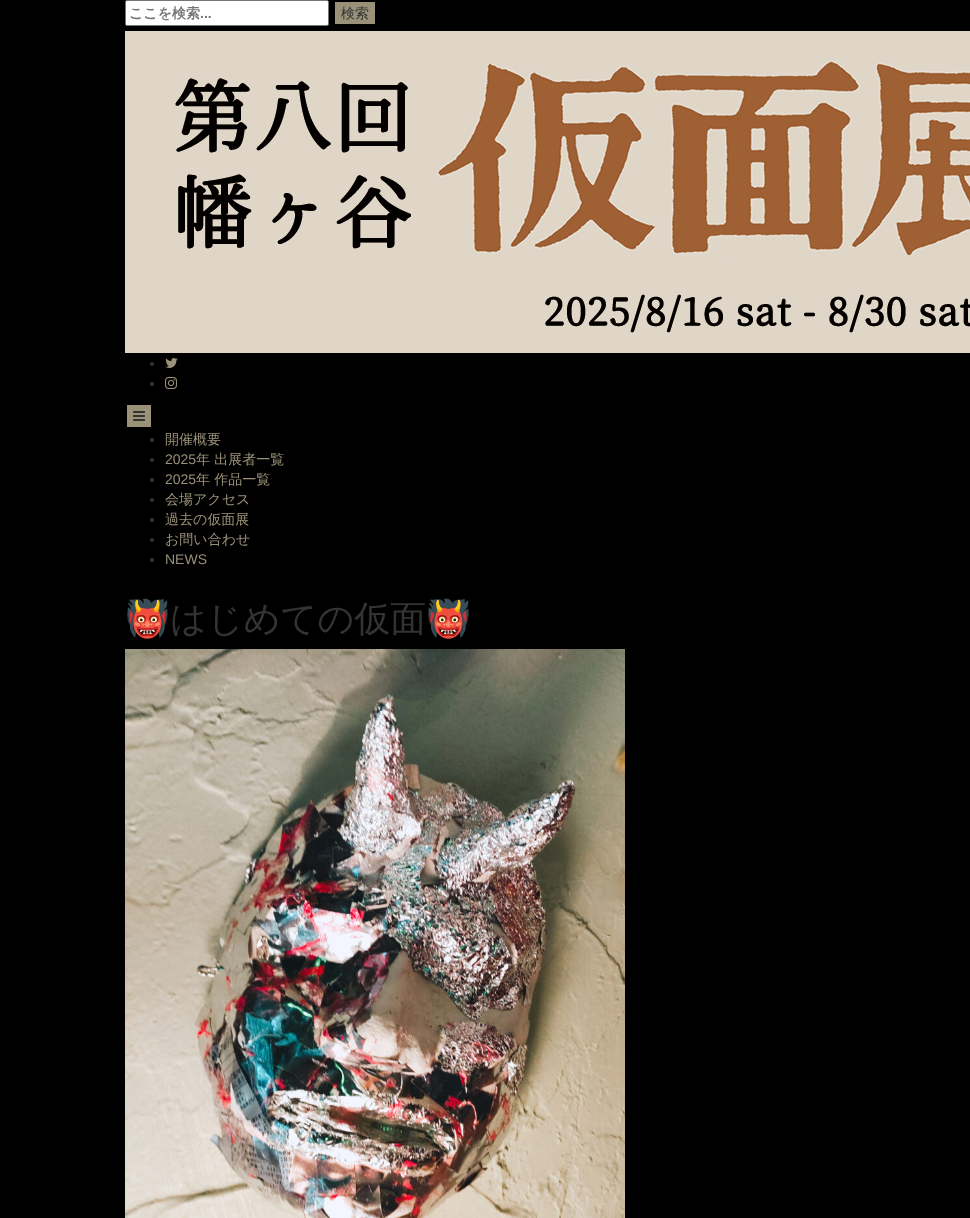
<svg xmlns="http://www.w3.org/2000/svg" width="970" height="1218" viewBox="0 0 970 1218">
  <rect width="100%" height="100%" fill="rgb(0,0,0)"/>
  <rect x="125.5" y="0.5" width="203" height="25" rx="1.5" fill="rgb(255,255,255)" stroke="rgb(118,118,118)"/>
  <text x="129" y="18" font-family="WenQuanYi Zen Hei" font-size="14" font-weight="bold" fill="rgb(117,117,117)">ここを検索</text>
  <text x="200" y="18" font-family="Liberation Sans" font-size="14" font-weight="bold" fill="rgb(117,117,117)">...</text>
  <rect x="335" y="2" width="40" height="22" fill="rgb(153,145,120)"/>
  <text x="341" y="18" font-family="WenQuanYi Zen Hei" font-size="14" font-weight="500" fill="rgb(51,51,51)">検索</text>
  <image x="125" y="31" width="845" height="322" href="pic1.png"/>
  <circle cx="152" cy="364" r="2" fill="rgb(51,51,51)"/>
  <image x="165" y="358" width="13" height="10" href="pic2.png"/>
  <circle cx="152" cy="384" r="2" fill="rgb(51,51,51)"/>
  <image x="165" y="377" width="12" height="12" href="pic3.png"/>
  <rect x="127" y="405" width="24" height="22" fill="rgb(153,145,120)"/>
  <image x="133" y="411" width="12" height="10" href="pic4.png"/>
  <circle cx="152" cy="440" r="2" fill="rgb(51,51,51)"/>
  <text x="165" y="444" font-family="WenQuanYi Zen Hei" font-size="14" font-weight="500" fill="rgb(153,145,120)">開催概要</text>
  <circle cx="152" cy="460" r="2" fill="rgb(51,51,51)"/>
  <text x="165" y="464" font-family="Liberation Sans" font-size="14" fill="rgb(153,145,120)">2025</text>
  <text x="196" y="464" font-family="WenQuanYi Zen Hei" font-size="14" font-weight="500" fill="rgb(153,145,120)">年 出展者一覧</text>
  <circle cx="152" cy="480" r="2" fill="rgb(51,51,51)"/>
  <text x="165" y="484" font-family="Liberation Sans" font-size="14" fill="rgb(153,145,120)">2025</text>
  <text x="196" y="484" font-family="WenQuanYi Zen Hei" font-size="14" font-weight="500" fill="rgb(153,145,120)">年 作品一覧</text>
  <circle cx="152" cy="500" r="2" fill="rgb(51,51,51)"/>
  <text x="165" y="504" font-family="WenQuanYi Zen Hei" font-size="14" font-weight="500" fill="rgb(153,145,120)">会場アクセス</text>
  <circle cx="152" cy="520" r="2" fill="rgb(51,51,51)"/>
  <text x="165" y="524" font-family="WenQuanYi Zen Hei" font-size="14" font-weight="500" fill="rgb(153,145,120)">過去の仮面展</text>
  <circle cx="152" cy="540" r="2" fill="rgb(51,51,51)"/>
  <text x="165" y="544" font-family="WenQuanYi Zen Hei" font-size="14" font-weight="500" fill="rgb(153,145,120)">お問い合わせ</text>
  <circle cx="152" cy="560" r="2" fill="rgb(51,51,51)"/>
  <text x="165" y="564" font-family="Liberation Sans" font-size="14" fill="rgb(153,145,120)">NEWS</text>
  <text x="125" y="631" font-family="Noto Color Emoji" font-size="36" fill="rgb(51,51,51)">👹</text>
  <text x="170" y="631" font-family="WenQuanYi Zen Hei" font-size="36" font-weight="500" fill="rgb(51,51,51)">はじめての仮面</text>
  <text x="426" y="631" font-family="Noto Color Emoji" font-size="36" fill="rgb(51,51,51)">👹</text>
  <image x="125" y="649" width="500" height="569" href="pic5.png"/>
</svg>
